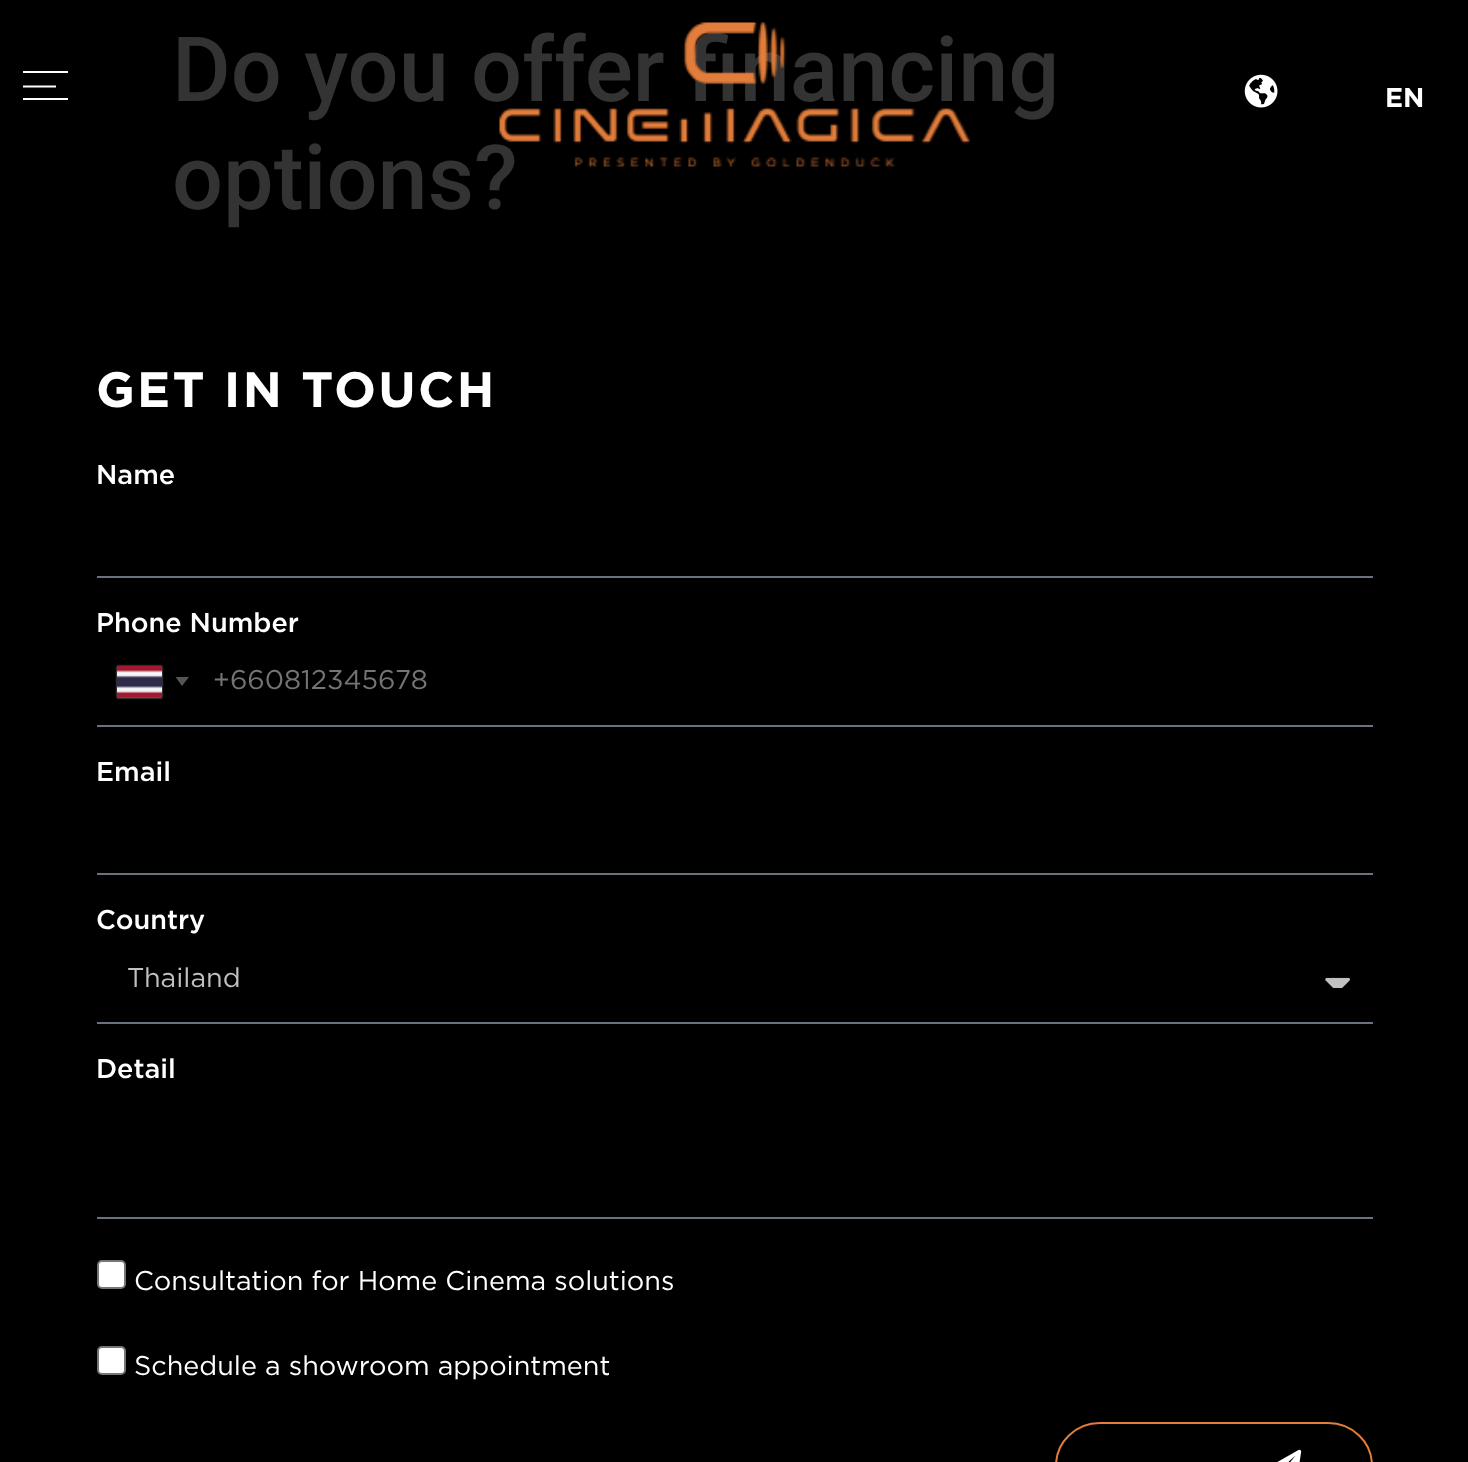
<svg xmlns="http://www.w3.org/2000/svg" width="1468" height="1462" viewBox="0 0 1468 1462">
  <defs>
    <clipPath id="clip1"><rect x="23" y="63" width="45" height="45"/></clipPath>
  </defs>
  <rect width="100%" height="100%" fill="rgb(0,0,0)"/>
  <g font-family="Roboto" font-size="90" font-weight="500" fill="rgb(51,51,51)">
    <text>
      <tspan x="172" y="101">Do you offer financing</tspan>
      <tspan x="172" y="209">options?</tspan>
    </text>
  </g>
  <rect x="23" y="71" width="45" height="2" fill="rgb(255,255,255)"/>
  <g clip-path="url(#clip1)">
    <path d="M22.5 86.5H56" fill="none" stroke="rgb(255,255,255)" stroke-width="2"/>
  </g>
  <rect x="23" y="98" width="45" height="2" fill="rgb(255,255,255)"/>
  <image x="499" y="22" width="471" height="145" href="pic1.png"/>
  <image x="1244" y="74" width="34" height="34" href="pic2.png"/>
  <text x="1385" y="107" font-family="Gotham" font-size="27" font-weight="bold" fill="rgb(255,255,255)">EN</text>
  <text x="96" y="407" font-family="Gotham" font-size="49.5" font-weight="bold" letter-spacing="2.25" fill="rgb(255,255,255)">GET IN TOUCH</text>
  <text x="96" y="484" font-family="Gotham" font-size="27" font-weight="500" fill="rgb(255,255,255)">Name</text>
  <rect x="97" y="576" width="1276" height="2" fill="rgb(105,114,125)"/>
  <text x="96" y="632" font-family="Gotham" font-size="27" font-weight="500" fill="rgb(255,255,255)">Phone Number</text>
  <rect x="117" y="666" width="45" height="32" fill="rgb(136,136,136)" filter="blur(1px)"/>
  <image x="117" y="666" width="45" height="32" href="pic3.png"/>
  <path d="M175.5 677H189L182 686Z" fill="rgb(85,85,85)"/>
  <rect x="97" y="725" width="1276" height="2" fill="rgb(105,114,125)"/>
  <text x="213" y="689" font-family="Gotham" font-size="27" fill="rgb(116,116,116)">+660812345678</text>
  <text x="96" y="781" font-family="Gotham" font-size="27" font-weight="500" fill="rgb(255,255,255)">Email</text>
  <rect x="97" y="873" width="1276" height="2" fill="rgb(105,114,125)"/>
  <text x="96" y="929" font-family="Gotham" font-size="27" font-weight="500" fill="rgb(255,255,255)">Country</text>
  <rect x="97" y="1022" width="1276" height="2" fill="rgb(105,114,125)"/>
  <text x="127" y="987" font-family="Gotham" font-size="27" fill="rgb(193,193,193)">Thailand</text>
  <image x="1325" y="977" width="25" height="11" href="pic4.png"/>
  <text x="96" y="1078" font-family="Gotham" font-size="27" font-weight="500" fill="rgb(255,255,255)">Detail</text>
  <rect x="97" y="1217" width="1276" height="2" fill="rgb(105,114,125)"/>
  <rect x="98" y="1261" width="27" height="27" rx="4" fill="rgb(255,255,255)" stroke="rgb(118,118,118)" stroke-width="2"/>
  <text x="134" y="1290" font-family="Gotham" font-size="27" fill="rgb(255,255,255)">Consultation for Home Cinema solutions</text>
  <rect x="98" y="1347" width="27" height="27" rx="4" fill="rgb(255,255,255)" stroke="rgb(118,118,118)" stroke-width="2"/>
  <text x="134" y="1375" font-family="Gotham" font-size="27" fill="rgb(255,255,255)">Schedule a showroom appointment</text>
  <rect x="1056" y="1423" width="316" height="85" rx="44" fill="none" stroke="rgb(226,125,59)" stroke-width="2"/>
  <image x="1277" y="1449" width="25" height="13" href="pic5.png"/>
</svg>
